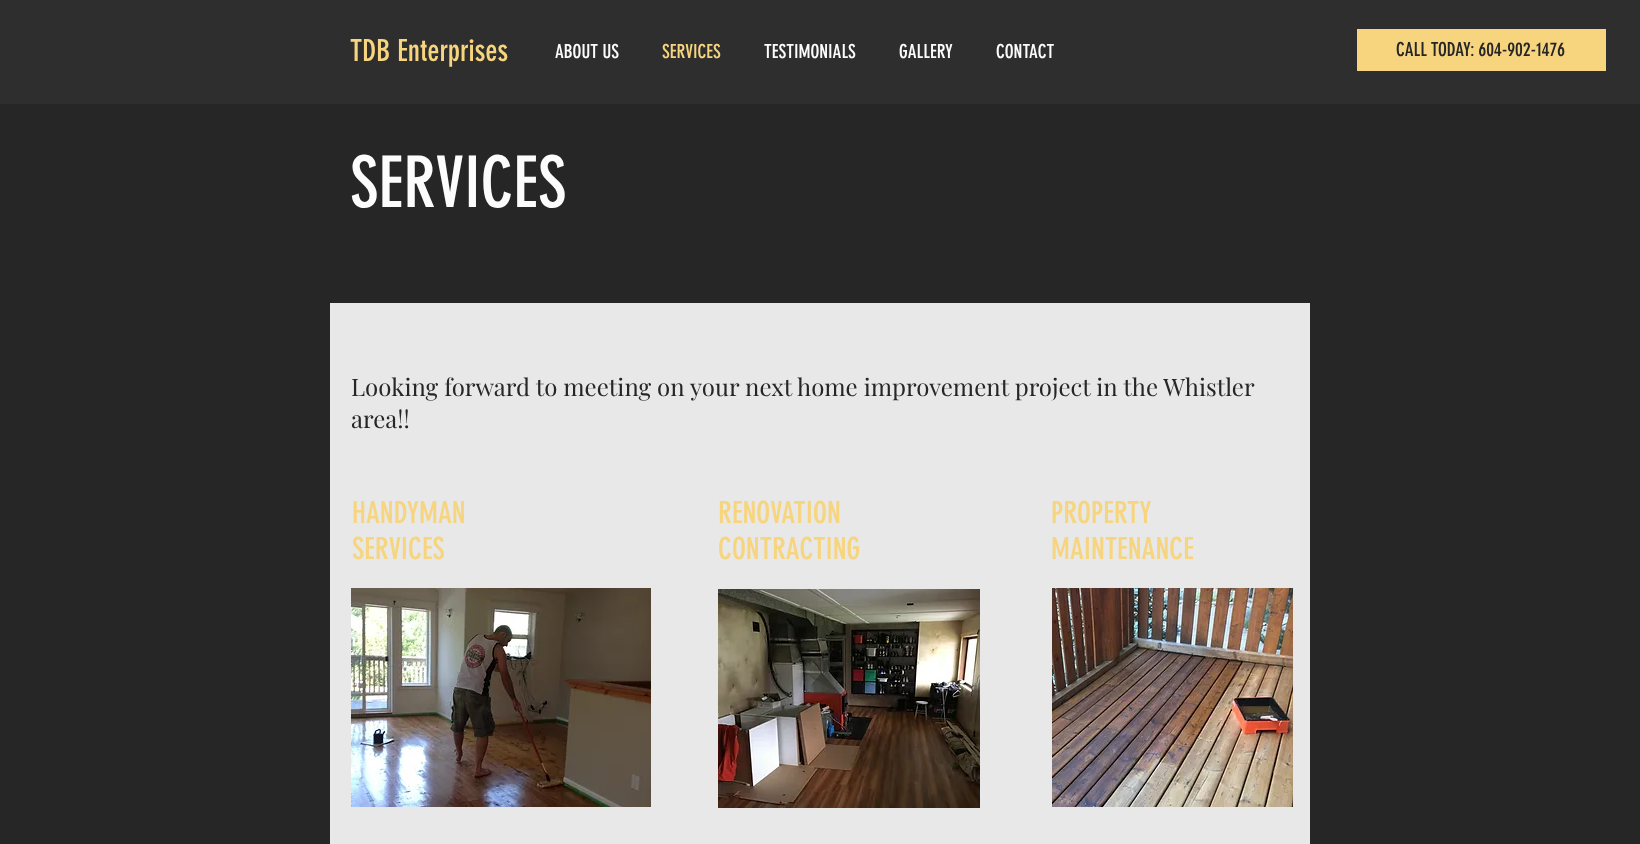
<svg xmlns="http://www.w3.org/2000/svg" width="1640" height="844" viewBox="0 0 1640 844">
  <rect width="100%" height="100%" fill="rgb(38,38,38)"/>
  <rect x="0" y="0" width="1640" height="104" fill="rgb(47,46,46)"/>
  <text x="350" y="61" font-family="'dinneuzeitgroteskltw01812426'" font-size="30" fill="rgb(247,213,127)">TDB Enterprises</text>
  <text x="555" y="58" font-family="'dinneuzeitgroteskltw01812426'" font-size="19" fill="rgb(252,252,252)">ABOUT US</text>
  <text x="662" y="58" font-family="'dinneuzeitgroteskltw01812426'" font-size="19" fill="rgb(247,213,127)">SERVICES</text>
  <g font-family="'dinneuzeitgroteskltw01812426'" font-size="19" fill="rgb(252,252,252)">
    <text x="764" y="58">TESTIMONIALS</text>
    <text x="899" y="58">GALLERY</text>
    <text x="996" y="58">CONTACT</text>
  </g>
  <rect x="1357" y="29" width="249" height="42" fill="rgb(247,213,127)"/>
  <text x="1396" y="56" font-family="'dinneuzeitgroteskltw01812426'" font-size="19" fill="rgb(38,38,38)">CALL TODAY: 604-902-1476</text>
  <text x="350" y="207" font-family="'dinneuzeitgroteskltw01812426'" font-size="70" fill="rgb(252,252,252)">SERVICES</text>
  <rect x="330" y="303" width="980" height="541" fill="rgb(232,232,232)"/>
  <g font-family="Playfair Display" font-size="24" fill="rgb(38,38,38)">
    <text>
      <tspan x="351" y="396">Looking forward to meeting on your next home improvement project in the Whistler</tspan>
      <tspan x="351" y="428">area!!</tspan>
    </text>
  </g>
  <g font-family="'dinneuzeitgroteskltw01812426'" font-size="30" fill="rgb(247,213,127)">
    <text>
      <tspan x="352" y="523">HANDYMAN</tspan>
      <tspan x="352" y="559">SERVICES</tspan>
    </text>
    <text>
      <tspan x="718" y="523">RENOVATION</tspan>
      <tspan x="718" y="559">CONTRACTING</tspan>
    </text>
    <text>
      <tspan x="1051" y="523">PROPERTY</tspan>
      <tspan x="1051" y="559">MAINTENANCE</tspan>
    </text>
  </g>
  <image x="351" y="588" width="300" height="219" href="pic1.png"/>
  <image x="718" y="589" width="262" height="219" href="pic2.png"/>
  <image x="1052" y="588" width="241" height="219" href="pic3.png"/>
</svg>
